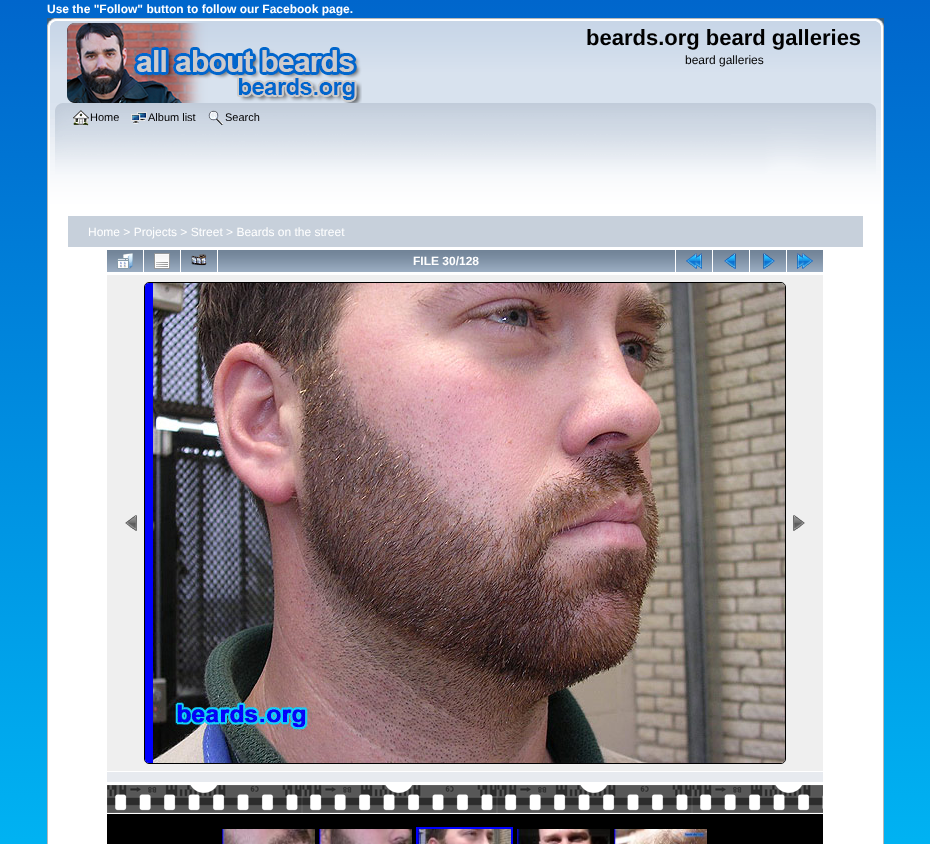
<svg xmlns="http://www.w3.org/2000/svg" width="930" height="844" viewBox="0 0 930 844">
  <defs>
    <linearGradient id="g1" gradientUnits="userSpaceOnUse" x1="465" y1="0" x2="465" y2="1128"><stop offset="0" stop-color="rgb(0,102,204)"/><stop offset="1" stop-color="rgb(0,204,255)"/></linearGradient>
  </defs>
  <rect width="100%" height="100%" fill="rgb(255,255,255)"/>
  <rect x="0" y="0" width="930" height="844" fill="url(#g1)"/>
  <text x="47" y="13" font-family="Liberation Sans" font-size="12" font-weight="bold" fill="rgb(255,255,255)">Use the "Follow" button to follow our Facebook page.</text>
  <image x="47" y="18" width="829" height="85" href="pic1.png"/>
  <image x="876" y="18" width="8" height="85" href="pic2.png"/>
  <image x="67" y="23" width="295" height="80" href="pic3.png"/>
  <text x="586" y="45" font-family="Liberation Sans" font-size="22" font-weight="bold" fill="rgb(0,0,0)">beards.org beard galleries</text>
  <text x="685" y="64" font-family="Liberation Sans" font-size="12" fill="rgb(0,0,0)">beard galleries</text>
  <image x="47" y="103" width="822" height="110" href="pic4.png"/>
  <image x="869" y="103" width="15" height="110" href="pic5.png"/>
  <image x="73" y="110" width="16" height="16" href="pic6.png"/>
  <text x="90" y="121" font-family="Liberation Sans" font-size="11" fill="rgb(0,0,0)">Home</text>
  <image x="131" y="112" width="16" height="12" href="pic7.png"/>
  <text x="148" y="121" font-family="Liberation Sans" font-size="11" fill="rgb(0,0,0)">Album list</text>
  <image x="208" y="110" width="16" height="15" href="pic8.png"/>
  <text x="225" y="121" font-family="Liberation Sans" font-size="11" fill="rgb(0,0,0)">Search</text>
  <rect x="48" y="213" width="835" height="631" fill="rgb(255,255,255)"/>
  <rect x="47" y="213" width="1" height="631" fill="rgb(183,183,183)"/>
  <rect x="883" y="213" width="1" height="631" fill="rgb(183,183,183)"/>
  <rect x="68" y="216" width="795" height="31" fill="rgb(199,208,219)"/>
  <text x="88" y="236" font-family="Liberation Sans" font-size="12" fill="rgb(255,255,255)">Home &gt; Projects &gt; Street &gt; Beards on the street</text>
  <image x="107" y="250" width="36" height="22" href="pic9.png"/>
  <image x="117" y="253" width="16" height="16" href="pic10.png"/>
  <image x="144" y="250" width="36" height="22" href="pic9.png"/>
  <image x="154" y="253" width="16" height="16" href="pic11.png"/>
  <image x="181" y="250" width="36" height="22" href="pic9.png"/>
  <image x="191" y="254" width="16" height="12" href="pic12.png"/>
  <image x="218" y="250" width="457" height="22" href="pic13.png"/>
  <text x="413" y="265" font-family="Liberation Sans" font-size="12" font-weight="bold" fill="rgb(255,255,255)">FILE 30/128</text>
  <image x="676" y="250" width="36" height="22" href="pic9.png"/>
  <image x="686" y="253" width="16" height="16" href="pic14.png"/>
  <image x="713" y="250" width="36" height="22" href="pic9.png"/>
  <image x="724" y="253" width="12" height="16" href="pic15.png"/>
  <image x="750" y="250" width="36" height="22" href="pic9.png"/>
  <image x="763" y="253" width="12" height="16" href="pic16.png"/>
  <image x="787" y="250" width="36" height="22" href="pic9.png"/>
  <image x="797" y="253" width="16" height="16" href="pic17.png"/>
  <rect x="107" y="275" width="716" height="496" fill="rgb(239,239,239)"/>
  <image x="125" y="515" width="12" height="16" href="pic18.png"/>
  <rect x="144.5" y="282.5" width="641" height="481" rx="4.5" fill="none" stroke="rgb(0,0,0)"/>
  <image x="145" y="283" width="640" height="480" href="pic19.png"/>
  <image x="793" y="515" width="12" height="16" href="pic20.png"/>
  <rect x="107" y="772" width="716" height="10" fill="rgb(231,234,239)"/>
  <image x="107" y="785" width="716" height="28" href="pic21.png"/>
  <rect x="107" y="814" width="716" height="30" fill="rgb(0,0,0)"/>
  <image x="222" y="829" width="93" height="15" href="pic22.png"/>
  <image x="319" y="829" width="93" height="15" href="pic23.png"/>
  <rect x="417" y="828" width="95" height="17" fill="none" stroke="rgb(0,0,255)" stroke-width="2"/>
  <image x="418" y="829" width="93" height="15" href="pic24.png"/>
  <image x="517" y="829" width="93" height="15" href="pic25.png"/>
  <image x="614" y="829" width="93" height="15" href="pic26.png"/>
</svg>
